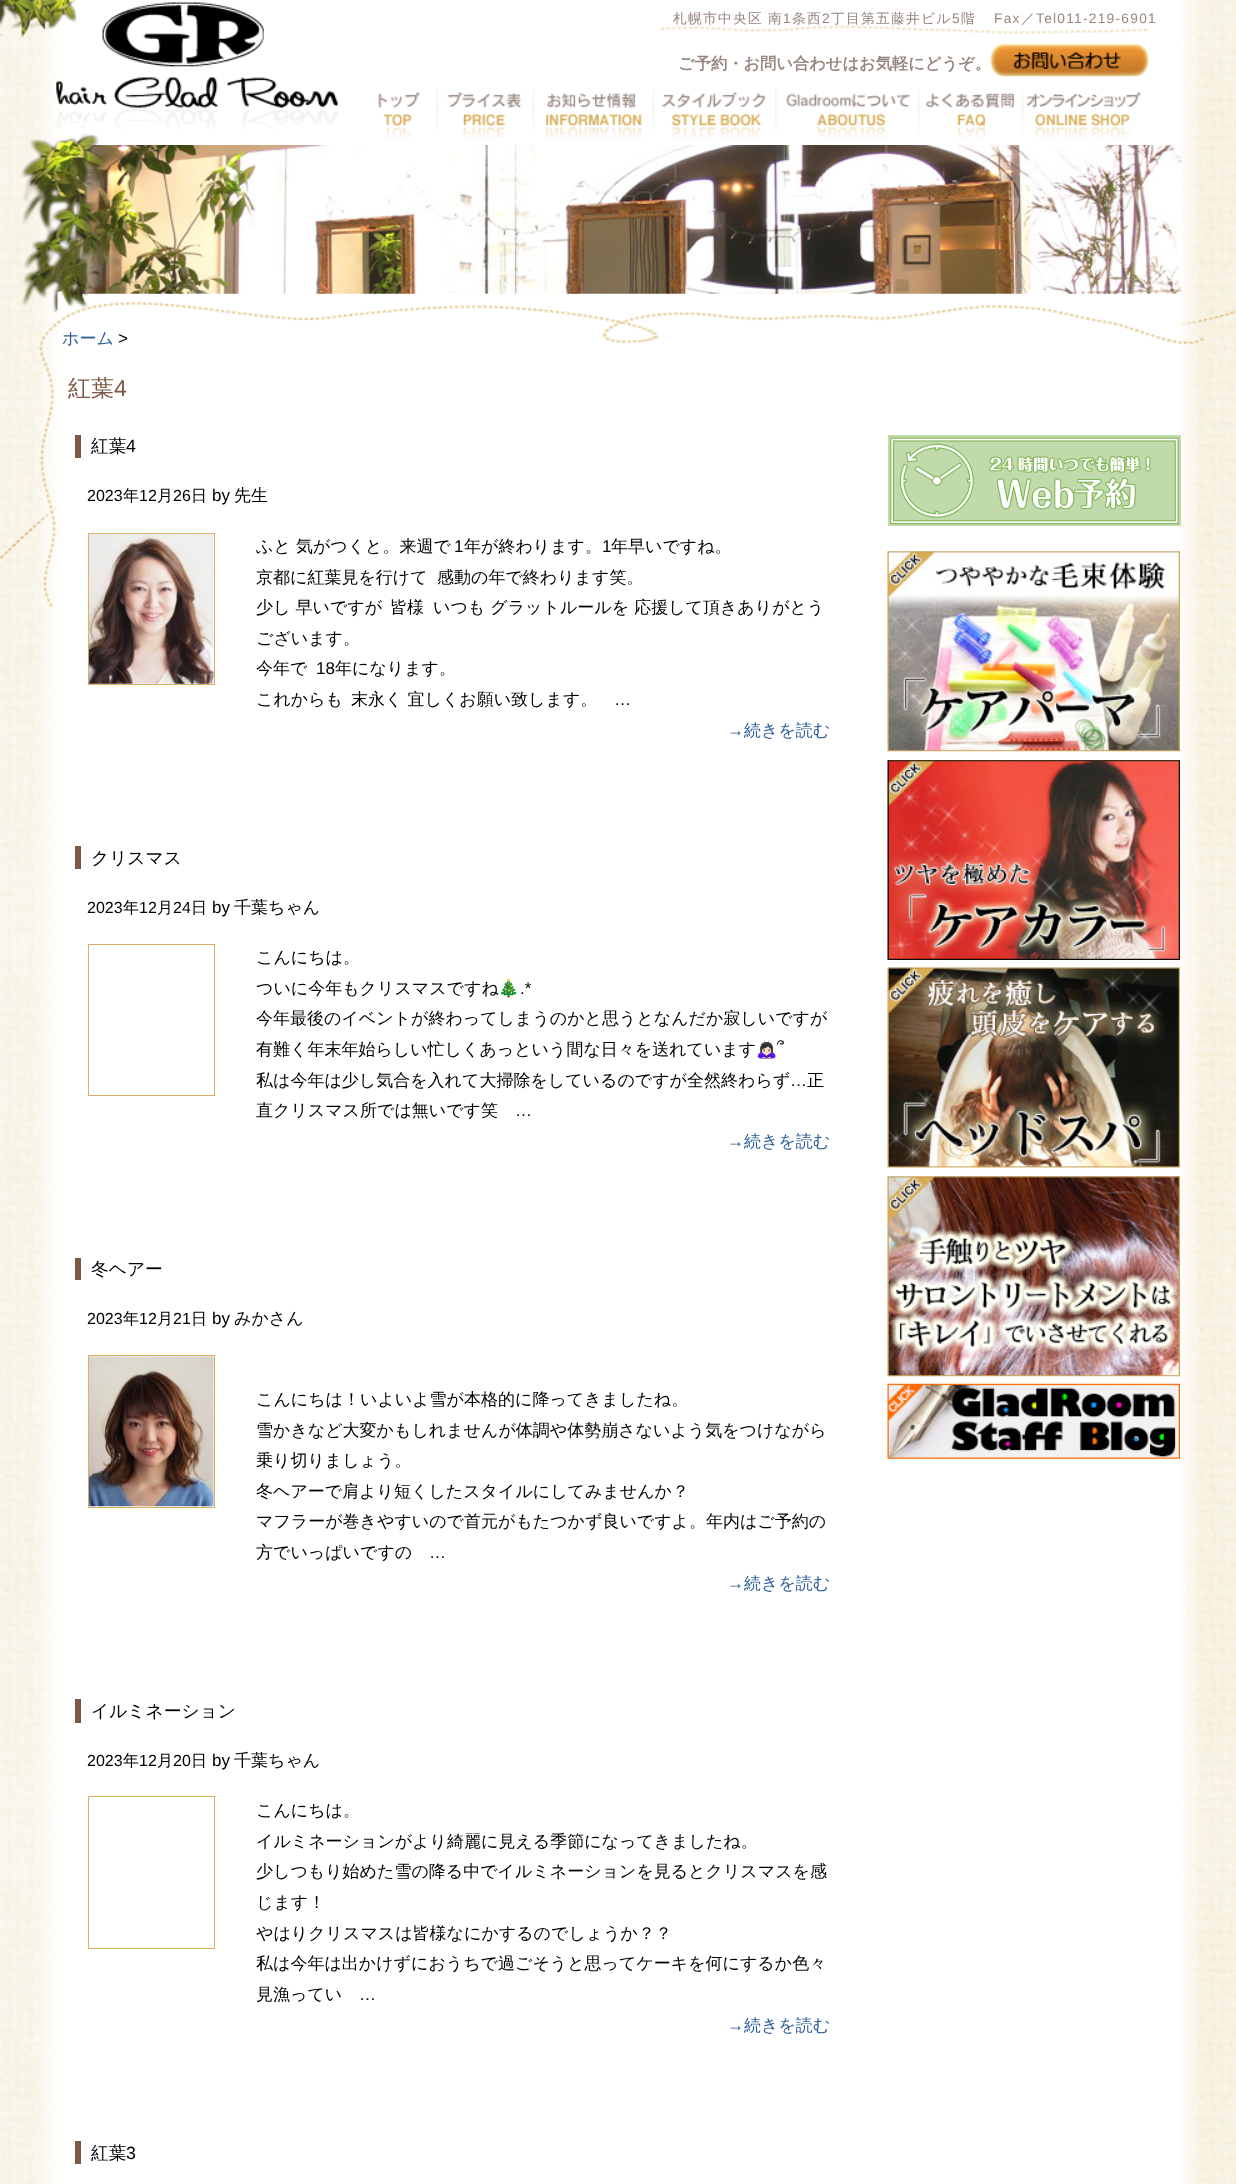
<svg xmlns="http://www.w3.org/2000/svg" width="1236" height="2184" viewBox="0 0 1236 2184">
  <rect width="100%" height="100%" fill="rgb(255,255,255)"/>
  <image x="0" y="0" width="1236" height="2184" href="pic1.png"/>
  <image x="0" y="310" width="1236" height="251" href="pic2.png"/>
  <image x="33" y="0" width="1169" height="2184" href="pic3.png"/>
  <image x="0" y="0" width="77" height="38" href="pic4.png"/>
  <image x="56" y="2" width="282" height="127" href="pic5.png"/>
  <image x="660" y="25" width="488" height="9" href="pic6.png"/>
  <g font-family="WenQuanYi Zen Hei" font-size="13.75" font-weight="500" letter-spacing="1.25" fill="rgb(151,134,127)">
    <text x="673" y="23">札幌市中央区</text>
    <text x="768" y="23">南</text>
  </g>
  <text x="783" y="23" font-family="Liberation Sans" font-size="13.75" letter-spacing="1.25" fill="rgb(151,134,127)">1</text>
  <text x="792" y="23" font-family="WenQuanYi Zen Hei" font-size="13.75" font-weight="500" letter-spacing="1.25" fill="rgb(151,134,127)">条西</text>
  <text x="822" y="23" font-family="Liberation Sans" font-size="13.75" letter-spacing="1.25" fill="rgb(151,134,127)">2</text>
  <text x="831" y="23" font-family="WenQuanYi Zen Hei" font-size="13.75" font-weight="500" letter-spacing="1.25" fill="rgb(151,134,127)">丁目第五藤井ビル</text>
  <text x="952" y="23" font-family="Liberation Sans" font-size="13.75" letter-spacing="1.25" fill="rgb(151,134,127)">5</text>
  <text x="961" y="23" font-family="WenQuanYi Zen Hei" font-size="13.75" font-weight="500" letter-spacing="1.25" fill="rgb(151,134,127)">階</text>
  <text x="994" y="23" font-family="Liberation Sans" font-size="13.75" letter-spacing="1.25" fill="rgb(151,134,127)">Fax</text>
  <text x="1021" y="23" font-family="WenQuanYi Zen Hei" font-size="13.75" font-weight="500" letter-spacing="1.25" fill="rgb(151,134,127)">／</text>
  <text x="1036" y="23" font-family="Liberation Sans" font-size="13.75" letter-spacing="1.25" fill="rgb(151,134,127)">Tel011-219-6901</text>
  <text x="678" y="69" font-family="WenQuanYi Zen Hei" font-size="16.25" font-weight="bold" fill="rgb(151,134,127)">ご予約・お問い合わせはお気軽にどうぞ。</text>
  <image x="990" y="43" width="159" height="34" href="pic7.png"/>
  <image x="378" y="92" width="43" height="47" href="pic8.png"/>
  <image x="436" y="89" width="86" height="50" href="pic9.png"/>
  <image x="532" y="89" width="110" height="50" href="pic10.png"/>
  <image x="652" y="89" width="114" height="50" href="pic11.png"/>
  <image x="775" y="89" width="136" height="50" href="pic12.png"/>
  <image x="917" y="89" width="97" height="50" href="pic13.png"/>
  <image x="1021" y="89" width="121" height="50" href="pic14.png"/>
  <image x="76" y="145" width="1106" height="149" href="pic15.png"/>
  <image x="38" y="301" width="1167" height="307" href="pic17.png"/>
  <image x="20" y="133" width="86" height="181" href="pic16.png"/>
  <text x="62" y="344" font-family="WenQuanYi Zen Hei" font-size="17" font-weight="500" fill="rgb(42,92,149)">ホーム</text>
  <text x="118" y="344" font-family="Liberation Sans" font-size="17" fill="rgb(0,0,0)">&gt;</text>
  <text x="68" y="396" font-family="WenQuanYi Zen Hei" font-size="23" font-weight="500" fill="rgb(126,87,69)">紅葉</text>
  <text x="114" y="396" font-family="Liberation Sans" font-size="23" fill="rgb(126,87,69)">4</text>
  <rect x="75" y="435" width="6" height="23" fill="rgb(126,87,69)"/>
  <text x="91" y="452" font-family="WenQuanYi Zen Hei" font-size="17.75" font-weight="500" fill="rgb(0,0,0)">紅葉</text>
  <text x="126" y="452" font-family="Liberation Sans" font-size="17.75" fill="rgb(0,0,0)">4</text>
  <text x="87" y="501" font-family="Liberation Sans" font-size="16" fill="rgb(0,0,0)">2023</text>
  <text x="123" y="501" font-family="WenQuanYi Zen Hei" font-size="16" font-weight="500" fill="rgb(0,0,0)">年</text>
  <text x="139" y="501" font-family="Liberation Sans" font-size="16" fill="rgb(0,0,0)">12</text>
  <text x="157" y="501" font-family="WenQuanYi Zen Hei" font-size="16" font-weight="500" fill="rgb(0,0,0)">月</text>
  <text x="173" y="501" font-family="Liberation Sans" font-size="16" fill="rgb(0,0,0)">26</text>
  <text x="191" y="501" font-family="WenQuanYi Zen Hei" font-size="16" font-weight="500" fill="rgb(0,0,0)">日</text>
  <text x="212" y="501" font-family="Liberation Sans" font-size="17" fill="rgb(0,0,0)">by</text>
  <text x="234" y="501" font-family="WenQuanYi Zen Hei" font-size="17" font-weight="500" fill="rgb(0,0,0)">先生</text>
  <rect x="88.5" y="533.5" width="126" height="151" fill="none" stroke="rgb(218,176,94)"/>
  <image x="88" y="533" width="126" height="151" href="pic18.png"/>
  <text x="256" y="552" font-family="WenQuanYi Zen Hei" font-size="17" font-weight="500" fill="rgb(0,0,0)">ふと 気がつくと。来週で</text>
  <text x="454" y="552" font-family="Liberation Sans" font-size="17" fill="rgb(0,0,0)">1</text>
  <text x="464" y="552" font-family="WenQuanYi Zen Hei" font-size="17" font-weight="500" fill="rgb(0,0,0)">年が終わります。</text>
  <text x="602" y="552" font-family="Liberation Sans" font-size="17" fill="rgb(0,0,0)">1</text>
  <g font-family="WenQuanYi Zen Hei" font-size="17" font-weight="500" fill="rgb(0,0,0)">
    <text x="611" y="552">年早いですね。</text>
    <text x="256" y="583">京都に紅葉見を行けて</text>
    <text x="437" y="583">感動の年で終わります笑。</text>
    <text x="256" y="613">少し 早いですが</text>
    <text x="390" y="613">皆様</text>
    <text x="433" y="613">いつも グラットルールを 応援して頂きありがとう</text>
    <text>
      <tspan x="256" y="644">ございます。</tspan>
      <tspan x="256" y="674">今年で</tspan>
    </text>
  </g>
  <text x="316" y="674" font-family="Liberation Sans" font-size="17" fill="rgb(0,0,0)">18</text>
  <g font-family="WenQuanYi Zen Hei" font-size="17" font-weight="500" fill="rgb(0,0,0)">
    <text x="335" y="674">年になります。</text>
    <text x="256" y="705">これからも</text>
    <text x="351" y="705">末永く 宜しくお願い致します。</text>
  </g>
  <text x="614" y="705" font-family="Liberation Sans" font-size="17" fill="rgb(0,0,0)">…</text>
  <text x="727" y="736" font-family="Liberation Sans" font-size="17" fill="rgb(42,92,149)">→</text>
  <text x="744" y="736" font-family="WenQuanYi Zen Hei" font-size="17" font-weight="500" fill="rgb(42,92,149)">続きを読む</text>
  <rect x="75" y="846" width="6" height="23" fill="rgb(126,87,69)"/>
  <text x="91" y="864" font-family="WenQuanYi Zen Hei" font-size="17.75" font-weight="500" fill="rgb(0,0,0)">クリスマス</text>
  <text x="87" y="913" font-family="Liberation Sans" font-size="16" fill="rgb(0,0,0)">2023</text>
  <text x="123" y="913" font-family="WenQuanYi Zen Hei" font-size="16" font-weight="500" fill="rgb(0,0,0)">年</text>
  <text x="139" y="913" font-family="Liberation Sans" font-size="16" fill="rgb(0,0,0)">12</text>
  <text x="157" y="913" font-family="WenQuanYi Zen Hei" font-size="16" font-weight="500" fill="rgb(0,0,0)">月</text>
  <text x="173" y="913" font-family="Liberation Sans" font-size="16" fill="rgb(0,0,0)">24</text>
  <text x="191" y="913" font-family="WenQuanYi Zen Hei" font-size="16" font-weight="500" fill="rgb(0,0,0)">日</text>
  <text x="212" y="913" font-family="Liberation Sans" font-size="17" fill="rgb(0,0,0)">by</text>
  <text x="234" y="913" font-family="WenQuanYi Zen Hei" font-size="17" font-weight="500" fill="rgb(0,0,0)">千葉ちゃん</text>
  <rect x="88.5" y="944.5" width="126" height="151" fill="none" stroke="rgb(218,176,94)"/>
  <g font-family="WenQuanYi Zen Hei" font-size="17" font-weight="500" fill="rgb(0,0,0)">
    <text>
      <tspan x="256" y="963">こんにちは。</tspan>
      <tspan x="256" y="994">ついに今年もクリスマスですね</tspan>
    </text>
  </g>
  <text x="498" y="994" font-family="Noto Color Emoji" font-size="17" fill="rgb(0,0,0)">🎄</text>
  <text x="520" y="994" font-family="Liberation Sans" font-size="17" fill="rgb(0,0,0)">.*</text>
  <g font-family="WenQuanYi Zen Hei" font-size="17" font-weight="500" fill="rgb(0,0,0)">
    <text>
      <tspan x="256" y="1024">今年最後のイベントが終わってしまうのかと思うとなんだか寂しいですが</tspan>
      <tspan x="256" y="1055">有難く年末年始らしい忙しくあっという間な日々を送れています</tspan>
    </text>
  </g>
  <text x="756" y="1055" font-family="Noto Color Emoji" font-size="17" fill="rgb(0,0,0)">🙇🏻‍♀️</text>
  <text x="777" y="1055" font-family="DejaVu Sans" font-size="17" fill="rgb(0,0,0)">՞</text>
  <text x="256" y="1086" font-family="WenQuanYi Zen Hei" font-size="17" font-weight="500" fill="rgb(0,0,0)">私は今年は少し気合を入れて大掃除をしているのですが全然終わらず</text>
  <text x="790" y="1086" font-family="Liberation Sans" font-size="17" fill="rgb(0,0,0)">…</text>
  <g font-family="WenQuanYi Zen Hei" font-size="17" font-weight="500" fill="rgb(0,0,0)">
    <text x="807" y="1086">正</text>
    <text x="256" y="1116">直クリスマス所では無いです笑</text>
  </g>
  <text x="515" y="1116" font-family="Liberation Sans" font-size="17" fill="rgb(0,0,0)">…</text>
  <text x="727" y="1147" font-family="Liberation Sans" font-size="17" fill="rgb(42,92,149)">→</text>
  <text x="744" y="1147" font-family="WenQuanYi Zen Hei" font-size="17" font-weight="500" fill="rgb(42,92,149)">続きを読む</text>
  <rect x="75" y="1258" width="6" height="22" fill="rgb(126,87,69)"/>
  <text x="91" y="1275" font-family="WenQuanYi Zen Hei" font-size="17.75" font-weight="500" fill="rgb(0,0,0)">冬ヘアー</text>
  <text x="87" y="1324" font-family="Liberation Sans" font-size="16" fill="rgb(0,0,0)">2023</text>
  <text x="123" y="1324" font-family="WenQuanYi Zen Hei" font-size="16" font-weight="500" fill="rgb(0,0,0)">年</text>
  <text x="139" y="1324" font-family="Liberation Sans" font-size="16" fill="rgb(0,0,0)">12</text>
  <text x="157" y="1324" font-family="WenQuanYi Zen Hei" font-size="16" font-weight="500" fill="rgb(0,0,0)">月</text>
  <text x="173" y="1324" font-family="Liberation Sans" font-size="16" fill="rgb(0,0,0)">21</text>
  <text x="191" y="1324" font-family="WenQuanYi Zen Hei" font-size="16" font-weight="500" fill="rgb(0,0,0)">日</text>
  <text x="212" y="1324" font-family="Liberation Sans" font-size="17" fill="rgb(0,0,0)">by</text>
  <text x="234" y="1324" font-family="WenQuanYi Zen Hei" font-size="17" font-weight="500" fill="rgb(0,0,0)">みかさん</text>
  <rect x="88.5" y="1355.5" width="126" height="152" fill="none" stroke="rgb(218,176,94)"/>
  <image x="88" y="1356" width="126" height="151" href="pic19.png"/>
  <g font-family="WenQuanYi Zen Hei" font-size="17" font-weight="500" fill="rgb(0,0,0)">
    <text>
      <tspan x="256" y="1405">こんにちは！いよいよ雪が本格的に降ってきましたね。</tspan>
      <tspan x="256" y="1436">雪かきなど大変かもしれませんが体調や体勢崩さないよう気をつけながら</tspan>
      <tspan x="256" y="1466">乗り切りましょう。</tspan>
      <tspan x="256" y="1497">冬ヘアーで肩より短くしたスタイルにしてみませんか？</tspan>
      <tspan x="256" y="1527">マフラーが巻きやすいので首元がもたつかず良いですよ。年内はご予約の</tspan>
      <tspan x="256" y="1558">方でいっぱいですの</tspan>
    </text>
  </g>
  <text x="429" y="1558" font-family="Liberation Sans" font-size="17" fill="rgb(0,0,0)">…</text>
  <text x="727" y="1589" font-family="Liberation Sans" font-size="17" fill="rgb(42,92,149)">→</text>
  <text x="744" y="1589" font-family="WenQuanYi Zen Hei" font-size="17" font-weight="500" fill="rgb(42,92,149)">続きを読む</text>
  <rect x="75" y="1699" width="6" height="24" fill="rgb(126,87,69)"/>
  <text x="91" y="1717" font-family="WenQuanYi Zen Hei" font-size="17.75" font-weight="500" fill="rgb(0,0,0)">イルミネーション</text>
  <text x="87" y="1766" font-family="Liberation Sans" font-size="16" fill="rgb(0,0,0)">2023</text>
  <text x="123" y="1766" font-family="WenQuanYi Zen Hei" font-size="16" font-weight="500" fill="rgb(0,0,0)">年</text>
  <text x="139" y="1766" font-family="Liberation Sans" font-size="16" fill="rgb(0,0,0)">12</text>
  <text x="157" y="1766" font-family="WenQuanYi Zen Hei" font-size="16" font-weight="500" fill="rgb(0,0,0)">月</text>
  <text x="173" y="1766" font-family="Liberation Sans" font-size="16" fill="rgb(0,0,0)">20</text>
  <text x="191" y="1766" font-family="WenQuanYi Zen Hei" font-size="16" font-weight="500" fill="rgb(0,0,0)">日</text>
  <text x="212" y="1766" font-family="Liberation Sans" font-size="17" fill="rgb(0,0,0)">by</text>
  <text x="234" y="1766" font-family="WenQuanYi Zen Hei" font-size="17" font-weight="500" fill="rgb(0,0,0)">千葉ちゃん</text>
  <rect x="88.5" y="1796.5" width="126" height="152" fill="none" stroke="rgb(218,176,94)"/>
  <g font-family="WenQuanYi Zen Hei" font-size="17" font-weight="500" fill="rgb(0,0,0)">
    <text>
      <tspan x="256" y="1816">こんにちは。</tspan>
      <tspan x="256" y="1847">イルミネーションがより綺麗に見える季節になってきましたね。</tspan>
      <tspan x="256" y="1877">少しつもり始めた雪の降る中でイルミネーションを見るとクリスマスを感</tspan>
      <tspan x="256" y="1908">じます！</tspan>
      <tspan x="256" y="1939">やはりクリスマスは皆様なにかするのでしょうか？？</tspan>
      <tspan x="256" y="1969">私は今年は出かけずにおうちで過ごそうと思ってケーキを何にするか色々</tspan>
      <tspan x="256" y="2000">見漁ってい</tspan>
    </text>
  </g>
  <text x="359" y="2000" font-family="Liberation Sans" font-size="17" fill="rgb(0,0,0)">…</text>
  <text x="727" y="2031" font-family="Liberation Sans" font-size="17" fill="rgb(42,92,149)">→</text>
  <text x="744" y="2031" font-family="WenQuanYi Zen Hei" font-size="17" font-weight="500" fill="rgb(42,92,149)">続きを読む</text>
  <rect x="75" y="2141" width="6" height="23" fill="rgb(126,87,69)"/>
  <text x="91" y="2159" font-family="WenQuanYi Zen Hei" font-size="17.75" font-weight="500" fill="rgb(0,0,0)">紅葉</text>
  <text x="126" y="2159" font-family="Liberation Sans" font-size="17.75" fill="rgb(0,0,0)">3</text>
  <image x="888" y="435" width="293" height="91" href="pic20.png"/>
  <image x="887" y="551" width="293" height="201" href="pic21.png"/>
  <image x="887" y="760" width="293" height="200" href="pic22.png"/>
  <image x="887" y="967" width="293" height="201" href="pic23.png"/>
  <image x="887" y="1176" width="293" height="201" href="pic24.png"/>
  <image x="887" y="1383" width="293" height="76" href="pic25.png"/>
</svg>
